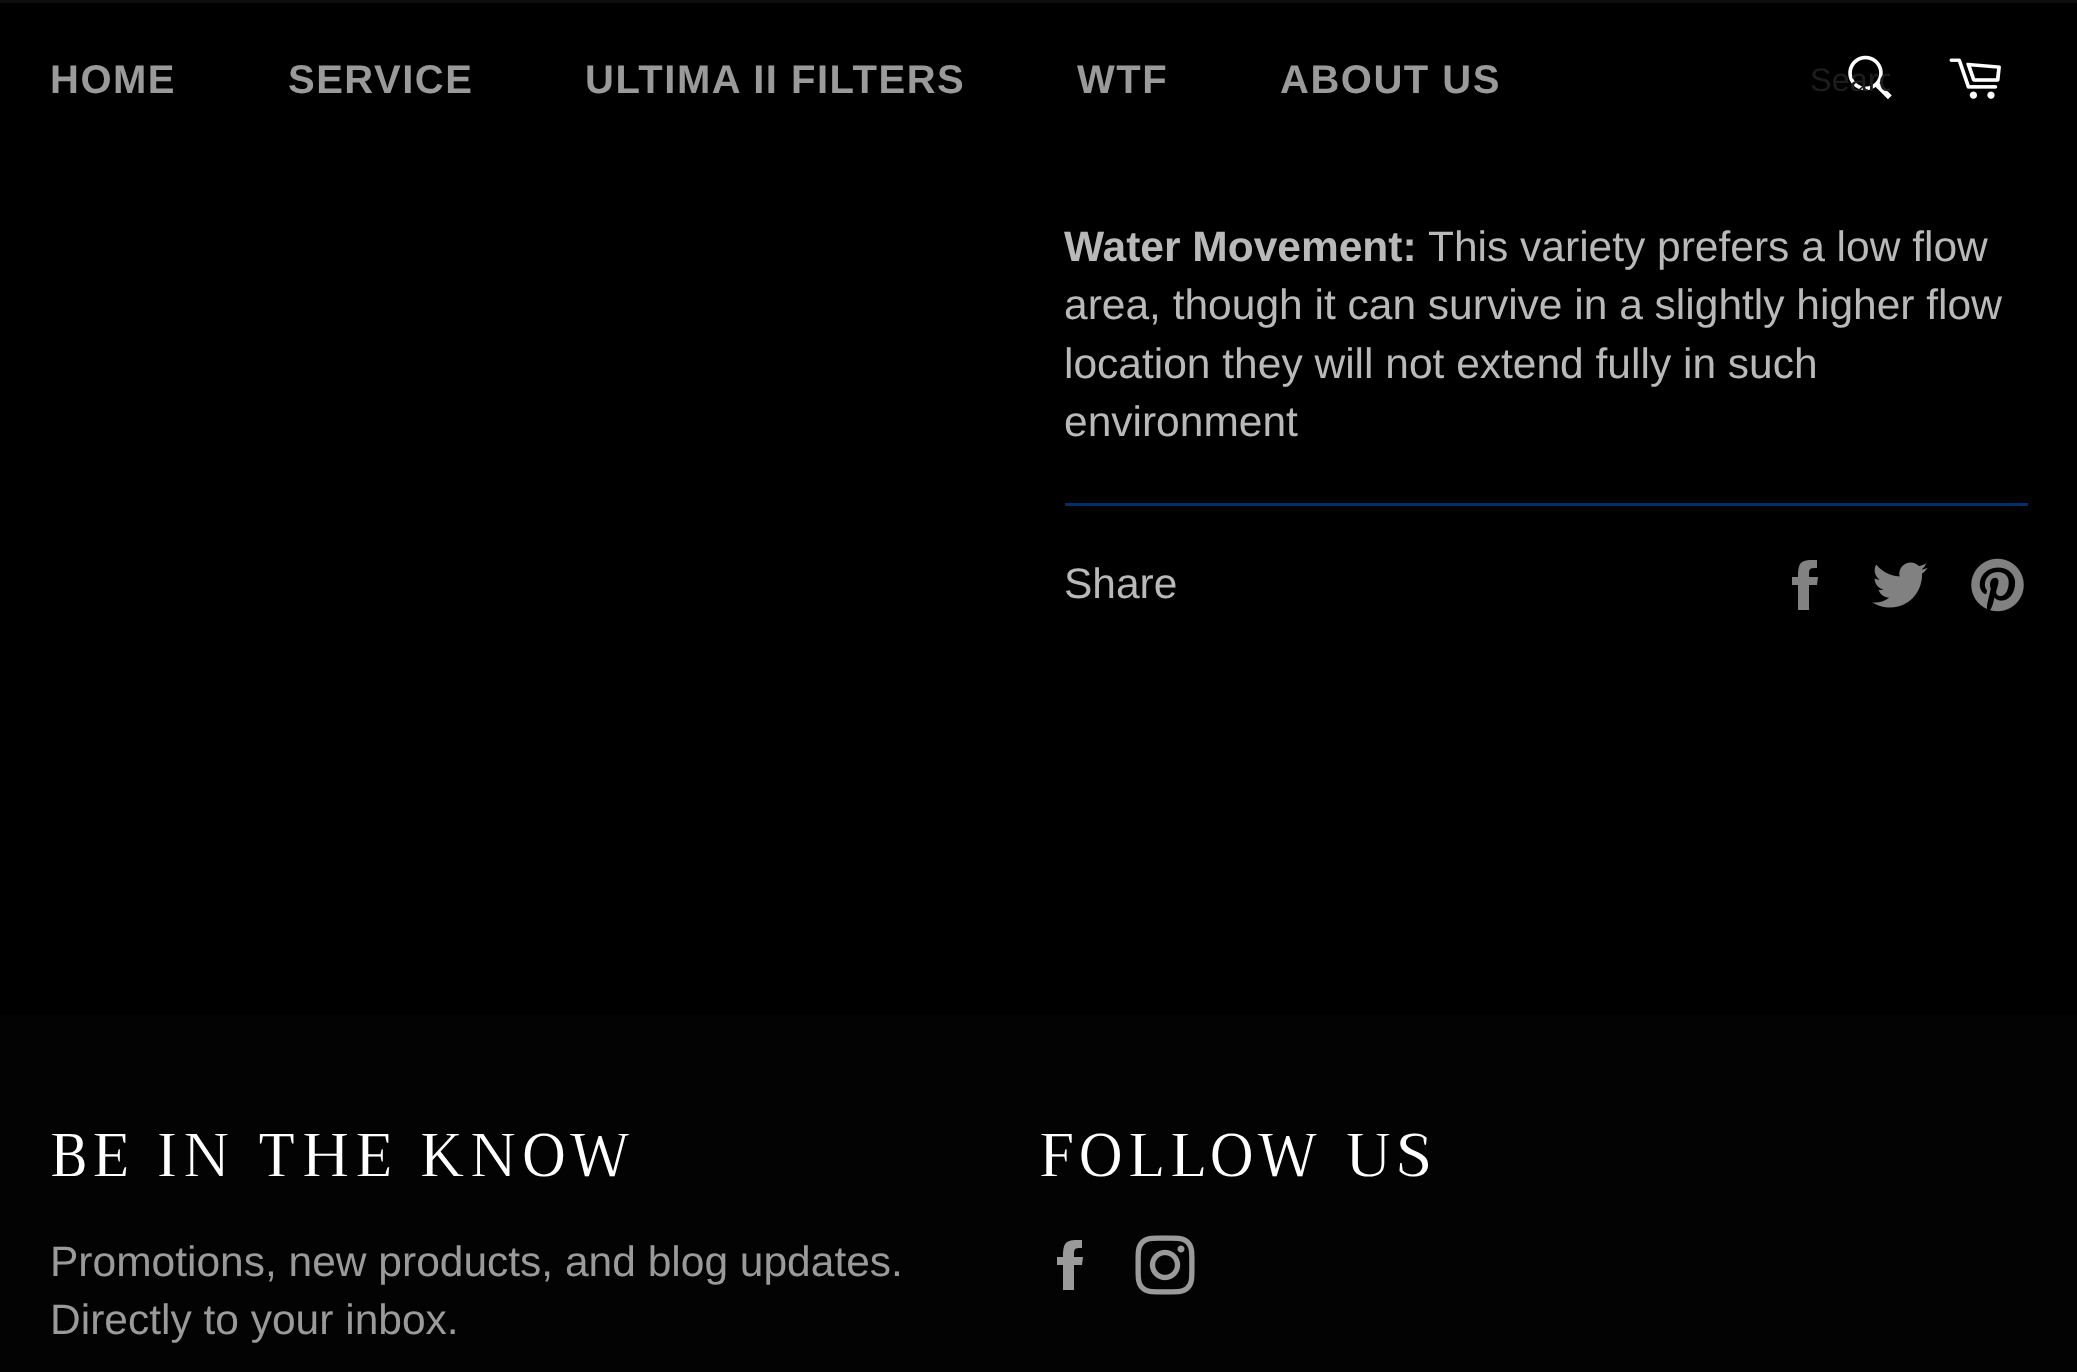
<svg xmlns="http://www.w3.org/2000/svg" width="2077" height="1372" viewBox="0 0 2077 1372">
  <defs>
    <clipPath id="clip1"><rect x="1810" y="63" width="80" height="37"/></clipPath>
  </defs>
  <rect width="100%" height="100%" fill="rgb(0,0,0)"/>
  <rect x="0" y="0" width="2077" height="3" fill="rgb(13,13,13)"/>
  <g font-family="Arimo" font-size="40" font-weight="bold" letter-spacing="1.5" fill="rgb(154,154,154)">
    <text x="50" y="93">HOME</text>
    <text x="288" y="93">SERVICE</text>
    <text x="585" y="93">ULTIMA II FILTERS</text>
    <text x="1077" y="93">WTF</text>
    <text x="1280" y="93">ABOUT US</text>
  </g>
  <image x="1848" y="55" width="44" height="45" href="pic1.png"/>
  <g clip-path="url(#clip1)">
    <text x="1810" y="91" font-family="Arimo" font-size="32.5" fill="rgb(29,29,29)">Searc</text>
  </g>
  <image x="1949" y="58" width="52" height="41" href="pic2.png"/>
  <text x="1064" y="261" font-family="Arimo" font-size="42.5" font-weight="bold" fill="rgb(185,185,185)">Water Movement:</text>
  <g font-family="Arimo" font-size="42.5" fill="rgb(185,185,185)">
    <text x="1428" y="261">This variety prefers a low flow</text>
    <text>
      <tspan x="1064" y="319">area, though it can survive in a slightly higher flow</tspan>
      <tspan x="1064" y="378">location they will not extend fully in such</tspan>
      <tspan x="1064" y="436">environment</tspan>
    </text>
  </g>
  <rect x="1065" y="503" width="963" height="3" fill="rgb(2,47,106)"/>
  <text x="1064" y="598" font-family="Arimo" font-size="42.5" fill="rgb(185,185,185)">Share</text>
  <path d="M1809 577C1809 568 1809 568 1817 568V560C1802 560 1798 560 1798 577H1792V585H1798V610H1809V585H1817L1818 577Z" fill="rgb(130,130,130)"/>
  <image x="1872" y="562" width="56" height="46" href="pic3.png"/>
  <image x="1971" y="558" width="53" height="54" href="pic4.png"/>
  <rect x="0" y="1015" width="2077" height="357" fill="rgb(3,3,3)"/>
  <text x="50" y="1176" font-family="Trirong" font-size="60" letter-spacing="6" fill="rgb(255,255,255)">BE IN THE KNOW</text>
  <g font-family="Arimo" font-size="42.5" fill="rgb(154,154,154)">
    <text>
      <tspan x="50" y="1276">Promotions, new products, and blog updates.</tspan>
      <tspan x="50" y="1334">Directly to your inbox.</tspan>
    </text>
  </g>
  <text x="1039" y="1176" font-family="Trirong" font-size="60" letter-spacing="6" fill="rgb(255,255,255)">FOLLOW US</text>
  <path d="M1074 1257C1074 1248 1074 1248 1082 1248V1240C1067 1240 1063 1240 1063 1257H1057V1265H1063V1290H1074V1265H1082L1083 1257Z" fill="rgb(154,154,154)"/>
  <image x="1135" y="1235" width="60" height="60" href="pic5.png"/>
</svg>
